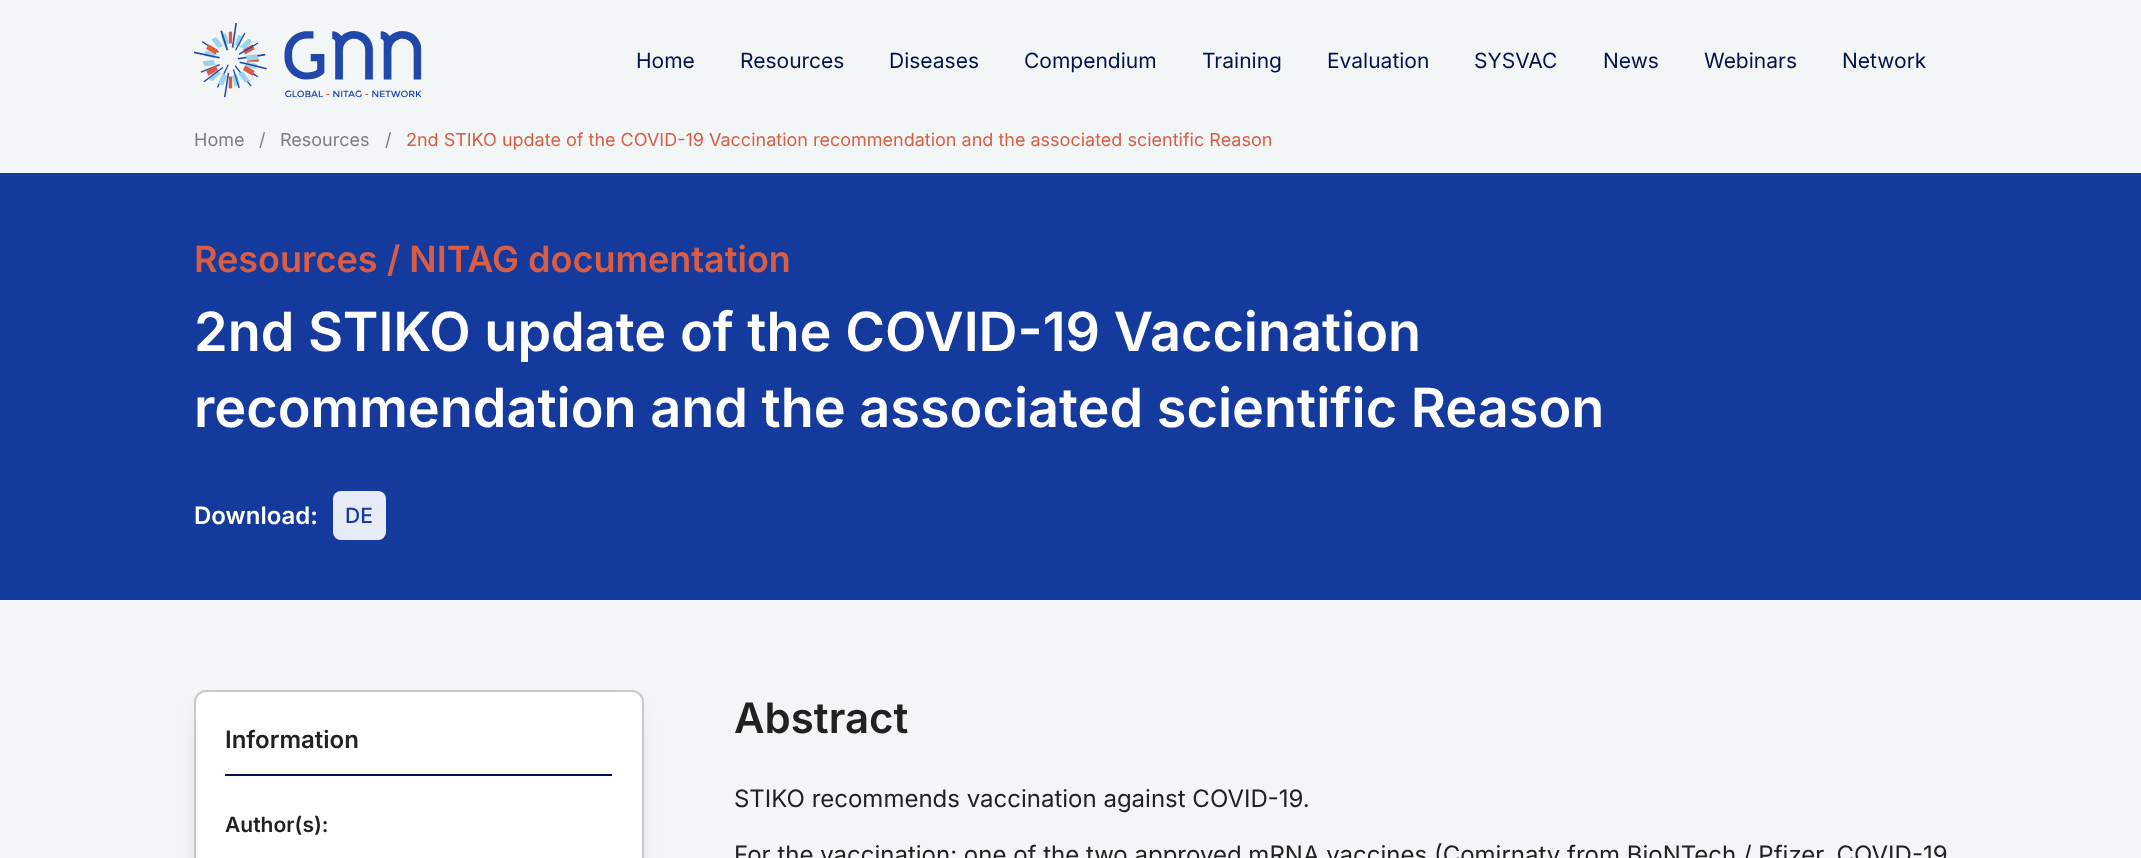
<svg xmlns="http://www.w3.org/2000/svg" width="2141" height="858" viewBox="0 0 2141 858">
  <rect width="100%" height="100%" fill="rgb(243,246,247)"/>
  <image x="194" y="23" width="228" height="75" href="pic1.png"/>
  <g font-family="Inter" font-size="21" fill="rgb(0,18,77)">
    <text x="636" y="68">Home</text>
    <text x="740" y="68">Resources</text>
    <text x="889" y="68">Diseases</text>
    <text x="1024" y="68">Compendium</text>
    <text x="1202" y="68">Training</text>
    <text x="1327" y="68">Evaluation</text>
    <text x="1474" y="68">SYSVAC</text>
    <text x="1603" y="68">News</text>
    <text x="1704" y="68">Webinars</text>
    <text x="1842" y="68">Network</text>
  </g>
  <g font-family="Inter" font-size="18" fill="rgb(125,125,125)">
    <text x="194" y="146">Home</text>
    <text x="259" y="146">/</text>
    <text x="280" y="146">Resources</text>
    <text x="385" y="146">/</text>
  </g>
  <text x="406" y="146" font-family="Inter" font-size="18" fill="rgb(217,93,69)">2nd STIKO update of the COVID-19 Vaccination recommendation and the associated scientific Reason</text>
  <rect x="0" y="173" width="2141" height="427" fill="rgb(21,58,157)"/>
  <text x="194" y="272" font-family="Inter" font-size="36" font-weight="600" fill="rgb(217,93,69)">Resources / NITAG documentation</text>
  <g font-family="Inter" font-size="54" font-weight="600" fill="rgb(255,255,255)">
    <text>
      <tspan x="194" y="351">2nd STIKO update of the COVID-19 Vaccination</tspan>
      <tspan x="194" y="427">recommendation and the associated scientific Reason</tspan>
    </text>
  </g>
  <text x="194" y="524" font-family="Inter" font-size="24" font-weight="600" fill="rgb(255,255,255)">Download:</text>
  <rect x="333" y="491" width="53" height="49" rx="8" fill="rgb(255,255,255)"/>
  <rect x="333" y="491" width="53" height="49" rx="8" fill="rgba(21,58,157,0.1)"/>
  <text x="345" y="523" font-family="Inter" font-size="21" font-weight="500" fill="rgb(21,58,157)">DE</text>
  <rect x="201" y="713" width="435" height="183" rx="5" fill="rgba(125,125,125,0.25)" filter="blur(11px)"/>
  <rect x="195" y="691" width="448" height="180" rx="11" fill="rgb(255,255,255)" stroke="rgb(201,201,201)" stroke-width="2"/>
  <rect x="225" y="774" width="387" height="2" fill="rgb(0,18,77)"/>
  <text x="225" y="748" font-family="Inter" font-size="24" font-weight="600" fill="rgb(33,33,33)">Information</text>
  <text x="225" y="832" font-family="Inter" font-size="21" font-weight="600" fill="rgb(33,33,33)">Author(s):</text>
  <text x="734" y="733" font-family="Inter" font-size="42" font-weight="600" fill="rgb(33,33,33)">Abstract</text>
  <g font-family="Inter" font-size="24" fill="rgb(33,33,33)">
    <text x="734" y="807">STIKO recommends vaccination against COVID-19.</text>
    <text x="734" y="863">For the vaccination: one of the two approved mRNA vaccines (Comirnaty from BioNTech / Pfizer, COVID-19</text>
  </g>
</svg>
